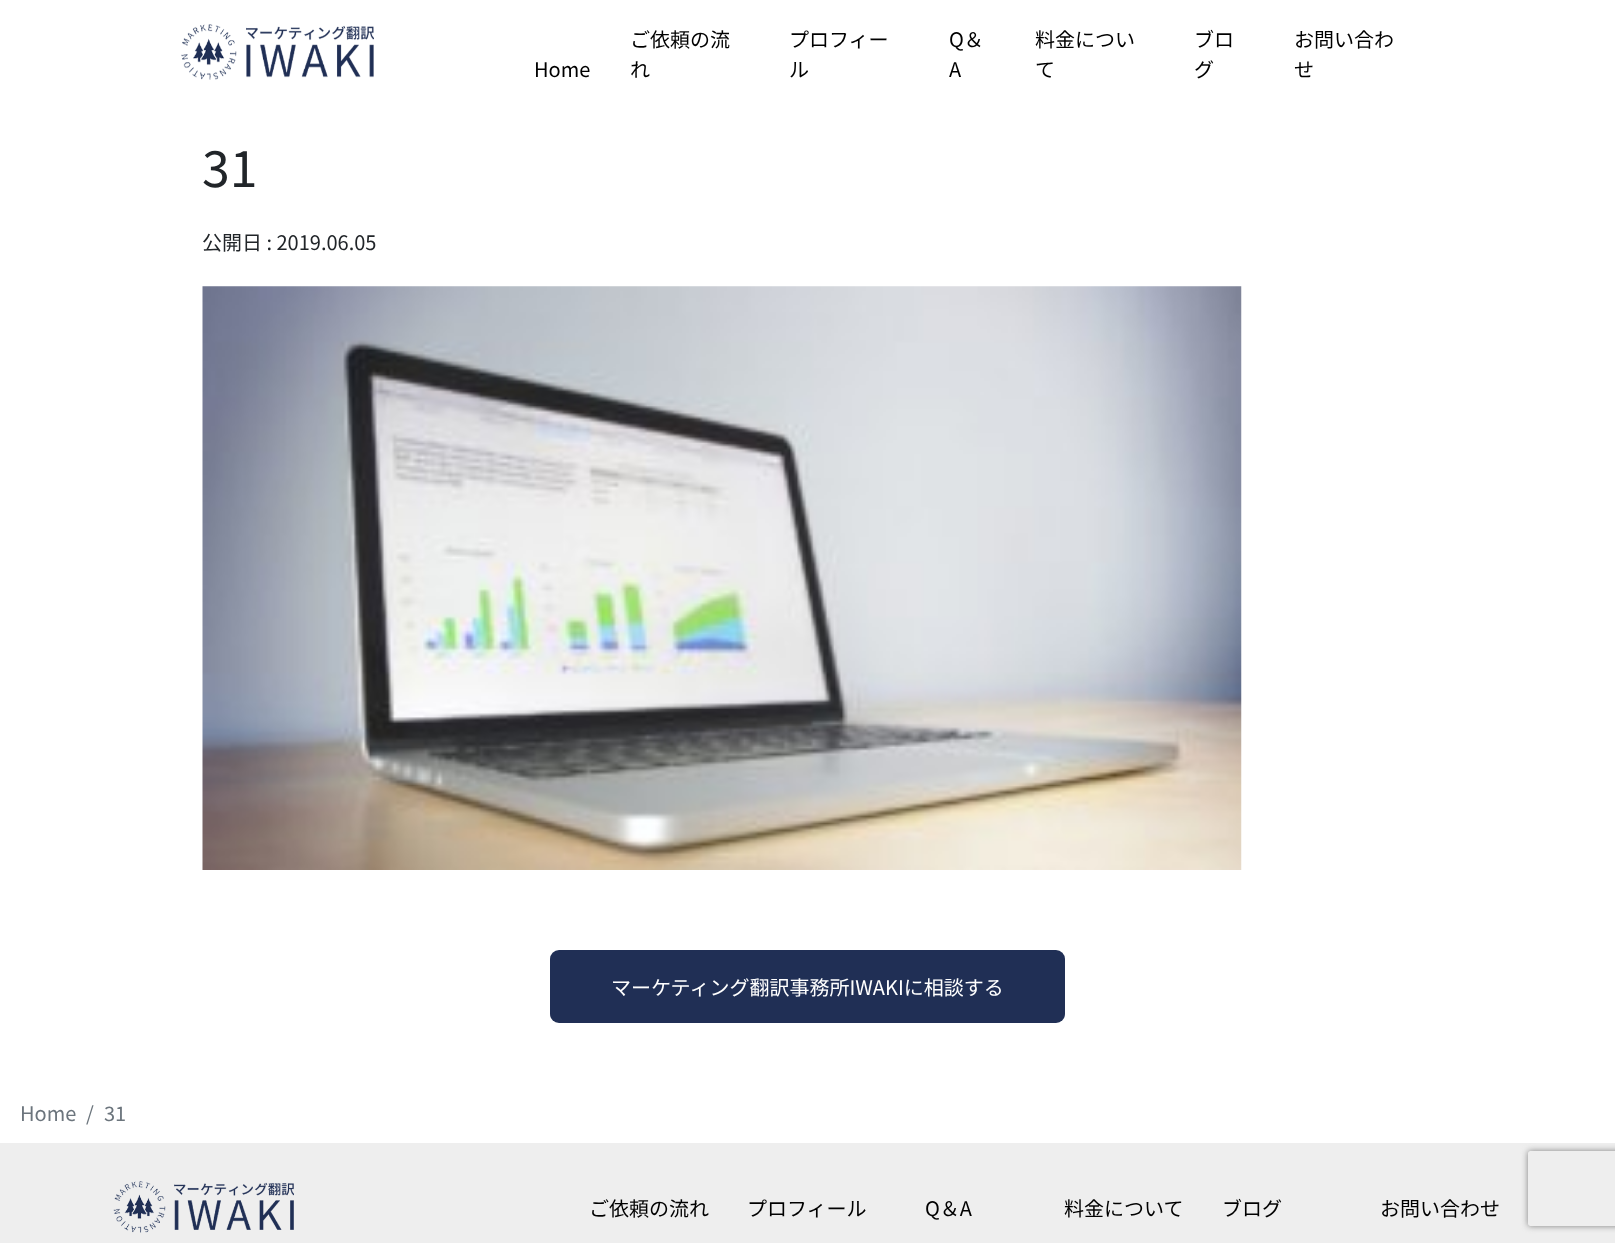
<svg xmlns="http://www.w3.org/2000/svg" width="1615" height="1243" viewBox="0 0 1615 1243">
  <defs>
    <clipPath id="clip1"><path d="M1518 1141H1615V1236H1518ZM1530.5 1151H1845.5C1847 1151 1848 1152 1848 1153.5V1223.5C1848 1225 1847 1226 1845.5 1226H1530.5C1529 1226 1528 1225 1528 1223.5V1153.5C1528 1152 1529 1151 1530.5 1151Z" clip-rule="evenodd"/></clipPath>
  </defs>
  <rect width="100%" height="100%" fill="rgb(255,255,255)"/>
  <image x="181" y="24" width="193" height="56" href="pic1.png"/>
  <g font-family="Noto Sans JP" font-size="20" fill="rgb(0,0,0)">
    <text x="534" y="77">Home</text>
    <text>
      <tspan x="630" y="47">ご依頼の流</tspan>
      <tspan x="630" y="77">れ</tspan>
    </text>
    <text>
      <tspan x="789" y="47">プロフィー</tspan>
      <tspan x="789" y="77">ル</tspan>
    </text>
    <text>
      <tspan x="949" y="47">Q＆</tspan>
      <tspan x="949" y="77">A</tspan>
    </text>
    <text>
      <tspan x="1035" y="47">料金につい</tspan>
      <tspan x="1035" y="77">て</tspan>
    </text>
    <text>
      <tspan x="1194" y="47">ブロ</tspan>
      <tspan x="1194" y="77">グ</tspan>
    </text>
    <text>
      <tspan x="1294" y="47">お問い合わ</tspan>
      <tspan x="1294" y="77">せ</tspan>
    </text>
  </g>
  <text x="202" y="187" font-family="Noto Sans JP" font-size="50" fill="rgb(33,37,41)">31</text>
  <text x="202" y="250" font-family="Noto Sans JP" font-size="20" fill="rgb(33,37,41)">公開日 : 2019.06.05</text>
  <image x="202" y="286" width="1040" height="584" href="pic2.png"/>
  <rect x="550" y="950" width="515" height="73" rx="9" fill="rgb(32,47,85)"/>
  <text x="611" y="995" font-family="Noto Sans JP" font-size="20" fill="rgb(255,255,255)">マーケティング翻訳事務所IWAKIに相談する</text>
  <g font-family="Noto Sans JP" font-size="20" fill="rgb(108,117,125)">
    <text x="20" y="1121">Home</text>
    <text x="86" y="1121">/</text>
    <text x="104" y="1121">31</text>
  </g>
  <rect x="0" y="1143" width="1615" height="100" fill="rgb(238,238,238)"/>
  <image x="113" y="1181" width="181" height="52" href="pic3.png"/>
  <g font-family="Noto Sans JP" font-size="20" fill="rgb(0,0,0)">
    <text x="589" y="1216">ご依頼の流れ</text>
    <text x="747" y="1216">プロフィール</text>
    <text x="925" y="1216">Q＆A</text>
    <text x="1064" y="1216">料金について</text>
    <text x="1222" y="1216">ブログ</text>
    <text x="1380" y="1216">お問い合わせ</text>
  </g>
  <g clip-path="url(#clip1)">
    <rect x="1528" y="1151" width="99" height="75" rx="2.5" fill="rgb(128,128,128)" filter="blur(3px)"/>
  </g>
</svg>
